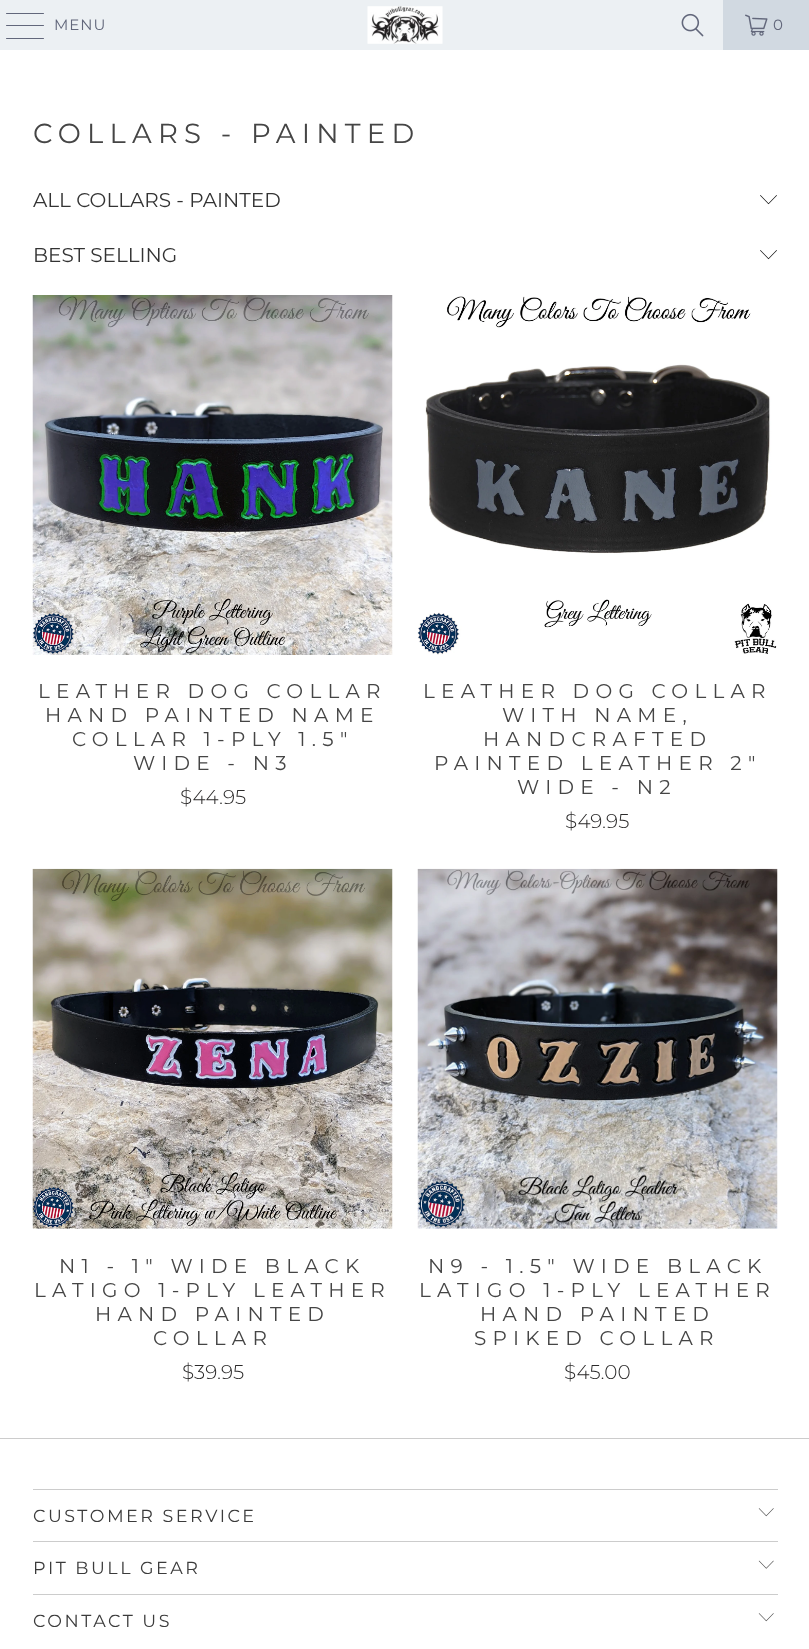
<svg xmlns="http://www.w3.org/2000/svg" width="809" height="1649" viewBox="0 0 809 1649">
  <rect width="100%" height="100%" fill="rgb(255,255,255)"/>
  <rect x="0" y="0" width="723" height="50" fill="rgb(236,240,243)"/>
  <rect x="6" y="13" width="38" height="1" rx="0.5" fill="rgb(98,103,123)"/>
  <rect x="6" y="25" width="38" height="1" rx="0.5" fill="rgb(98,103,123)"/>
  <rect x="6" y="38" width="38" height="1" rx="0.5" fill="rgb(98,103,123)"/>
  <text x="54" y="30" font-family="Montserrat" font-size="15" letter-spacing="1" fill="rgb(98,103,123)">MENU</text>
  <image x="367" y="6" width="76" height="38" href="pic1.png"/>
  <image x="681" y="13" width="23" height="24" href="pic2.png"/>
  <rect x="723" y="0" width="86" height="50" fill="rgb(209,217,225)"/>
  <image x="745" y="14" width="23" height="22" href="pic3.png"/>
  <text x="773" y="30" font-family="Montserrat" font-size="15" letter-spacing="1" fill="rgb(98,103,123)">0</text>
  <text x="33" y="143" font-family="Montserrat" font-size="27.5" letter-spacing="6.25" fill="rgb(69,69,69)">COLLARS - PAINTED</text>
  <image x="760" y="195" width="17" height="10" href="pic4.png"/>
  <text x="33" y="207" font-family="Montserrat" font-size="20" fill="rgb(51,51,51)">ALL COLLARS - PAINTED</text>
  <image x="760" y="250" width="17" height="10" href="pic4.png"/>
  <text x="33" y="262" font-family="Montserrat" font-size="20" fill="rgb(51,51,51)">BEST SELLING</text>
  <image x="32" y="295" width="361" height="360" href="pic5.png"/>
  <g font-family="Montserrat" font-size="20" letter-spacing="6.25" fill="rgb(69,69,69)">
    <text x="38" y="698">LEATHER DOG COLLAR</text>
    <text x="45" y="722">HAND PAINTED NAME</text>
    <text x="72" y="746">COLLAR 1-PLY 1.5"</text>
    <text x="133" y="770">WIDE - N3</text>
  </g>
  <text x="180" y="804" font-family="Montserrat" font-size="20" font-weight="300" fill="rgb(43,42,42)">$44.95</text>
  <image x="417" y="296" width="360" height="359" href="pic6.png"/>
  <g font-family="Montserrat" font-size="20" letter-spacing="6.25" fill="rgb(69,69,69)">
    <text x="423" y="698">LEATHER DOG COLLAR</text>
    <text x="502" y="722">WITH NAME,</text>
    <text x="483" y="746">HANDCRAFTED</text>
    <text x="434" y="770">PAINTED LEATHER 2"</text>
    <text x="517" y="794">WIDE - N2</text>
  </g>
  <text x="565" y="828" font-family="Montserrat" font-size="20" font-weight="300" fill="rgb(43,42,42)">$49.95</text>
  <image x="32" y="868" width="361" height="361" href="pic7.png"/>
  <g font-family="Montserrat" font-size="20" letter-spacing="6.25" fill="rgb(69,69,69)">
    <text x="59" y="1273">N1 - 1" WIDE BLACK</text>
    <text x="34" y="1297">LATIGO 1-PLY LEATHER</text>
    <text x="95" y="1321">HAND PAINTED</text>
    <text x="153" y="1345">COLLAR</text>
  </g>
  <text x="182" y="1379" font-family="Montserrat" font-size="20" font-weight="300" fill="rgb(43,42,42)">$39.95</text>
  <image x="417" y="868" width="361" height="361" href="pic8.png"/>
  <g font-family="Montserrat" font-size="20" letter-spacing="6.25" fill="rgb(69,69,69)">
    <text x="428" y="1273">N9 - 1.5" WIDE BLACK</text>
    <text x="419" y="1297">LATIGO 1-PLY LEATHER</text>
    <text x="480" y="1321">HAND PAINTED</text>
    <text x="474" y="1345">SPIKED COLLAR</text>
  </g>
  <text x="564" y="1379" font-family="Montserrat" font-size="20" font-weight="300" fill="rgb(43,42,42)">$45.00</text>
  <rect x="0" y="1438" width="809" height="1" fill="rgb(204,204,204)"/>
  <rect x="33" y="1489" width="745" height="1" fill="rgb(204,204,204)"/>
  <text x="33" y="1522" font-family="Montserrat" font-size="17.5" letter-spacing="2.5" fill="rgb(59,59,59)">CUSTOMER SERVICE</text>
  <image x="758" y="1508" width="16" height="9" href="pic9.png"/>
  <rect x="33" y="1541" width="745" height="1" fill="rgb(204,204,204)"/>
  <text x="33" y="1574" font-family="Montserrat" font-size="17.5" letter-spacing="2.5" fill="rgb(59,59,59)">PIT BULL GEAR</text>
  <image x="758" y="1560" width="16" height="9" href="pic10.png"/>
  <rect x="33" y="1594" width="745" height="1" fill="rgb(204,204,204)"/>
  <text x="33" y="1627" font-family="Montserrat" font-size="17.5" letter-spacing="2.5" fill="rgb(59,59,59)">CONTACT US</text>
  <image x="758" y="1613" width="16" height="9" href="pic9.png"/>
</svg>
